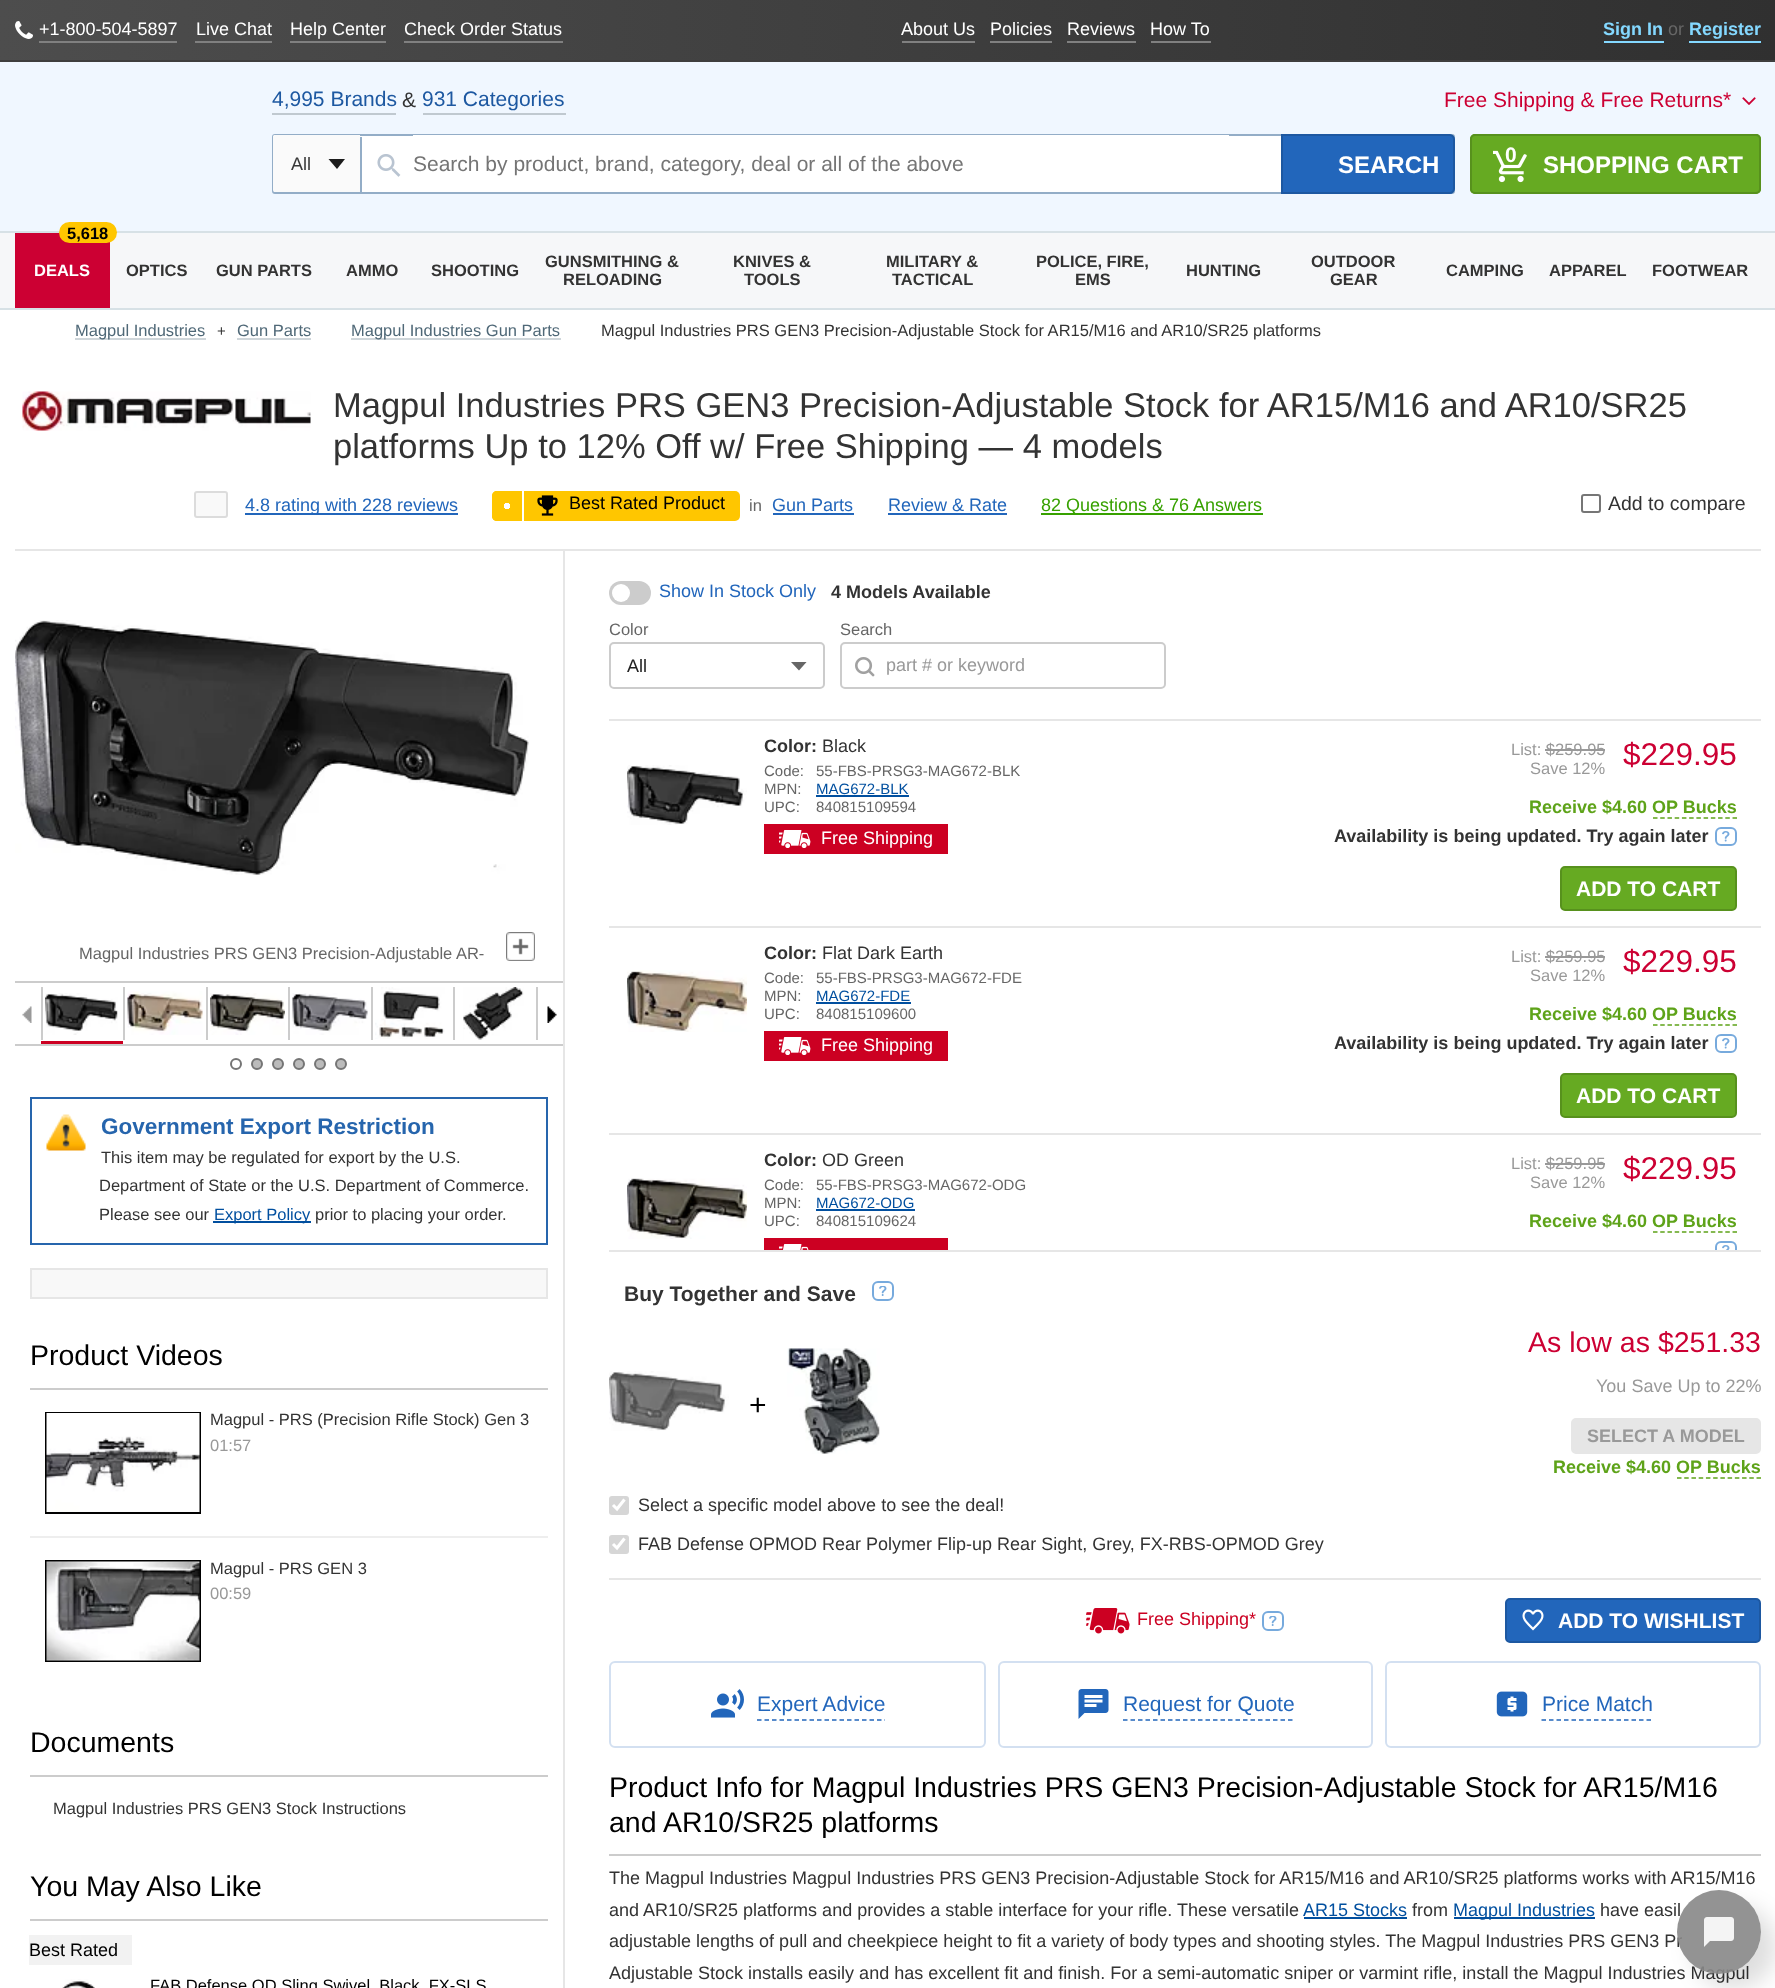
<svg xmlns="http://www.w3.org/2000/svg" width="1775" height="1988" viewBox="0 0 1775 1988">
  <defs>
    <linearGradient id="g1" gradientUnits="userSpaceOnUse" x1="0" y1="30" x2="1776" y2="30"><stop offset="0" stop-color="rgb(77,77,77)"/><stop offset="1" stop-color="rgb(48,48,48)"/></linearGradient>
    <radialGradient id="g2" gradientUnits="userSpaceOnUse" cx="507" cy="506" r="21"><stop offset="0.14" stop-color="rgb(255,255,255)"/><stop offset="0.14" stop-color="rgb(255,255,255)" stop-opacity="0"/></radialGradient>
    <clipPath id="clip1"><rect x="789" y="662" width="20" height="9"/></clipPath>
    <clipPath id="clip2"><rect x="609" y="720" width="1152" height="530"/></clipPath>
    <clipPath id="clip3"><path d="M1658 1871H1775V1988H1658ZM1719 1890C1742 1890 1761 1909 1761 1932C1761 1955 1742 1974 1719 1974C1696 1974 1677 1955 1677 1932C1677 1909 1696 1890 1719 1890Z" clip-rule="evenodd"/></clipPath>
  </defs>
  <rect width="100%" height="100%" fill="rgb(255,255,255)"/>
  <rect x="0" y="0" width="1775" height="60" fill="url(#g1)"/>
  <rect x="0" y="60" width="1775" height="2" fill="rgb(62,62,62)"/>
  <image x="15" y="21" width="18" height="18" href="pic1.png"/>
  <text x="39" y="35" font-family="Liberation Sans" font-size="18" fill="rgb(255,255,255)">+1-800-504-5897</text>
  <rect x="39" y="41" width="138" height="2" fill="rgb(128,128,128)"/>
  <text x="196" y="35" font-family="Liberation Sans" font-size="18" fill="rgb(255,255,255)">Live Chat</text>
  <rect x="195" y="41" width="77" height="2" fill="rgb(128,128,128)"/>
  <text x="290" y="35" font-family="Liberation Sans" font-size="18" fill="rgb(255,255,255)">Help Center</text>
  <rect x="290" y="41" width="96" height="2" fill="rgb(128,128,128)"/>
  <text x="404" y="35" font-family="Liberation Sans" font-size="18" fill="rgb(255,255,255)">Check Order Status</text>
  <rect x="404" y="41" width="159" height="2" fill="rgb(128,128,128)"/>
  <text x="901" y="35" font-family="Liberation Sans" font-size="18" fill="rgb(255,255,255)">About Us</text>
  <rect x="902" y="41" width="73" height="2" fill="rgb(128,128,128)"/>
  <text x="990" y="35" font-family="Liberation Sans" font-size="18" fill="rgb(255,255,255)">Policies</text>
  <rect x="990" y="41" width="62" height="2" fill="rgb(128,128,128)"/>
  <text x="1067" y="35" font-family="Liberation Sans" font-size="18" fill="rgb(255,255,255)">Reviews</text>
  <rect x="1067" y="41" width="69" height="2" fill="rgb(128,128,128)"/>
  <text x="1150" y="35" font-family="Liberation Sans" font-size="18" fill="rgb(255,255,255)">How To</text>
  <rect x="1151" y="41" width="60" height="2" fill="rgb(128,128,128)"/>
  <text x="1603" y="35" font-family="Liberation Sans" font-size="18" font-weight="bold" fill="rgb(132,216,255)">Sign In</text>
  <rect x="1604" y="41" width="60" height="2" fill="rgb(132,216,255)"/>
  <text x="1668" y="35" font-family="Liberation Sans" font-size="18" fill="rgb(102,102,102)">or</text>
  <text x="1689" y="35" font-family="Liberation Sans" font-size="18" font-weight="bold" fill="rgb(132,216,255)">Register</text>
  <rect x="1689" y="41" width="72" height="2" fill="rgb(132,216,255)"/>
  <rect x="0" y="62" width="1775" height="169" fill="rgb(240,247,255)"/>
  <rect x="0" y="231" width="1775" height="2" fill="rgb(215,225,230)"/>
  <text x="272" y="106" font-family="Liberation Sans" font-size="21" fill="rgb(29,88,161)">4,995 Brands</text>
  <rect x="272" y="113" width="124" height="2" fill="rgb(192,201,208)"/>
  <text x="402" y="107" font-family="Liberation Sans" font-size="21" fill="rgb(51,51,51)">&amp;</text>
  <text x="422" y="106" font-family="Liberation Sans" font-size="21" fill="rgb(29,88,161)">931 Categories</text>
  <rect x="423" y="113" width="143" height="2" fill="rgb(192,201,208)"/>
  <text x="1444" y="107" font-family="Liberation Sans" font-size="21" fill="rgb(204,0,51)">Free Shipping &amp; Free Returns*</text>
  <image x="1742" y="97" width="14" height="8" href="pic2.png"/>
  <rect x="360" y="136" width="921" height="56" fill="rgb(255,255,255)"/>
  <rect x="273" y="135" width="1181" height="58" rx="2" fill="none" stroke="rgb(147,173,199)" stroke-width="2"/>
  <path d="M274 135H360V192H274C274 192 273 191 273 190V136C273 136 274 135 274 135Z" fill="rgb(250,250,250)"/>
  <rect x="360" y="137" width="2" height="55" fill="rgb(147,173,199)"/>
  <text x="291" y="170" font-family="Liberation Sans" font-size="18" fill="rgb(57,57,57)">All</text>
  <path d="M337 169L328.5 159H345Z" fill="rgb(28,28,28)" fill-rule="evenodd"/>
  <image x="377" y="154" width="24" height="23" href="pic3.png"/>
  <rect x="413" y="135" width="816" height="1" fill="rgb(255,255,255)"/>
  <text x="413" y="171" font-family="Liberation Sans" font-size="21" fill="rgb(117,117,117)">Search by product, brand, category, deal or all of the above</text>
  <path d="M1282 135H1450C1452 135 1454 137 1454 139V189C1454 191 1452 193 1450 193H1282Z" fill="rgb(34,102,187)" stroke="rgb(29,88,161)" stroke-width="2"/>
  <text x="1338" y="173" font-family="Liberation Sans" font-size="24" font-weight="bold" fill="rgb(255,255,255)">SEARCH</text>
  <rect x="1470" y="134" width="291" height="60" rx="5" fill="rgb(102,170,34)"/>
  <image x="1493" y="150" width="34" height="33" href="pic4.png"/>
  <rect x="1471" y="135" width="289" height="58" rx="4" fill="none" stroke="rgb(87,145,29)" stroke-width="2"/>
  <text x="1505" y="162" font-family="Liberation Sans" font-size="21" font-weight="bold" fill="rgb(255,255,255)">0</text>
  <text x="1543" y="173" font-family="Liberation Sans" font-size="24" font-weight="bold" fill="rgb(255,255,255)">SHOPPING CART</text>
  <rect x="0" y="233" width="1775" height="75" fill="rgb(246,247,249)"/>
  <rect x="0" y="308" width="1775" height="2" fill="rgb(215,225,230)"/>
  <rect x="15" y="233" width="95" height="75" fill="rgb(204,0,51)"/>
  <rect x="59" y="222" width="58" height="21" rx="10.5" fill="rgb(255,198,0)"/>
  <text x="67" y="239" font-family="Liberation Sans" font-size="16.5" font-weight="bold" fill="rgb(0,0,0)">5,618</text>
  <text x="34" y="276" font-family="Liberation Sans" font-size="16.5" font-weight="bold" fill="rgb(255,255,255)">DEALS</text>
  <g font-family="Liberation Sans" font-size="16.5" font-weight="bold" fill="rgb(51,51,51)">
    <text x="126" y="276">OPTICS</text>
    <text x="216" y="276">GUN PARTS</text>
    <text x="346" y="276">AMMO</text>
    <text x="431" y="276">SHOOTING</text>
    <text x="545" y="267">GUNSMITHING &amp;</text>
    <text x="563" y="285">RELOADING</text>
    <text x="733" y="267">KNIVES &amp;</text>
    <text x="744" y="285">TOOLS</text>
    <text x="886" y="267">MILITARY &amp;</text>
    <text x="892" y="285">TACTICAL</text>
    <text x="1036" y="267">POLICE, FIRE,</text>
    <text x="1075" y="285">EMS</text>
    <text x="1186" y="276">HUNTING</text>
    <text x="1311" y="267">OUTDOOR</text>
    <text x="1330" y="285">GEAR</text>
    <text x="1446" y="276">CAMPING</text>
    <text x="1549" y="276">APPAREL</text>
    <text x="1652" y="276">FOOTWEAR</text>
  </g>
  <rect x="75" y="338" width="131" height="2" fill="rgb(207,214,218)"/>
  <text x="75" y="336" font-family="Liberation Sans" font-size="16.5" fill="rgb(79,104,119)">Magpul Industries</text>
  <text x="217" y="336" font-family="Liberation Sans" font-size="15" fill="rgb(51,51,51)">+</text>
  <text x="237" y="336" font-family="Liberation Sans" font-size="16.5" fill="rgb(79,104,119)">Gun Parts</text>
  <rect x="237" y="338" width="74" height="2" fill="rgb(207,214,218)"/>
  <rect x="351" y="338" width="210" height="2" fill="rgb(207,214,218)"/>
  <text x="351" y="336" font-family="Liberation Sans" font-size="16.5" fill="rgb(79,104,119)">Magpul Industries Gun Parts</text>
  <text x="601" y="336" font-family="Liberation Sans" font-size="16.5" fill="rgb(51,51,51)">Magpul Industries PRS GEN3 Precision-Adjustable Stock for AR15/M16 and AR10/SR25 platforms</text>
  <image x="22" y="391" width="289" height="40" href="pic5.png"/>
  <g font-family="Liberation Sans" font-size="34.5" fill="rgb(51,51,51)">
    <text>
      <tspan x="333" y="417">Magpul Industries PRS GEN3 Precision-Adjustable Stock for AR15/M16 and AR10/SR25</tspan>
      <tspan x="333" y="458">platforms Up to 12% Off w/ Free Shipping — 4 models</tspan>
    </text>
  </g>
  <rect x="15" y="549" width="1746" height="2" fill="rgb(230,230,230)"/>
  <rect x="195" y="492" width="32" height="25" rx="2" fill="rgb(249,249,249)" stroke="rgb(220,220,220)" stroke-width="2"/>
  <rect x="245" y="513" width="213" height="2" fill="rgb(34,102,187)"/>
  <text x="245" y="511" font-family="Liberation Sans" font-size="18" fill="rgb(34,102,187)">4.8 rating with 228 reviews</text>
  <rect x="492" y="491" width="248" height="30" rx="5" fill="rgb(255,198,0)"/>
  <path d="M497 491H524V521H497C494 521 492 519 492 516V496C492 493 494 491 497 491Z" fill="rgb(255,198,0)"/>
  <rect x="504" y="503" width="6" height="6" fill="url(#g2)"/>
  <rect x="522" y="491" width="2" height="30" fill="rgb(255,255,255)"/>
  <image x="537" y="495" width="21" height="21" href="pic6.png"/>
  <text x="569" y="509" font-family="Liberation Sans" font-size="18" fill="rgb(0,0,0)">Best Rated Product</text>
  <text x="749" y="511" font-family="Liberation Sans" font-size="16.5" fill="rgb(102,102,102)">in</text>
  <text x="772" y="511" font-family="Liberation Sans" font-size="18" fill="rgb(34,102,187)">Gun Parts</text>
  <rect x="773" y="513" width="81" height="2" fill="rgb(34,102,187)"/>
  <text x="888" y="511" font-family="Liberation Sans" font-size="18" fill="rgb(34,102,187)">Review &amp; Rate</text>
  <rect x="888" y="513" width="119" height="2" fill="rgb(34,102,187)"/>
  <rect x="1041" y="513" width="222" height="2" fill="rgb(55,161,0)"/>
  <text x="1041" y="511" font-family="Liberation Sans" font-size="18" fill="rgb(55,161,0)">82 Questions &amp; 76 Answers</text>
  <rect x="1582" y="495" width="18" height="17" rx="2" fill="none" stroke="rgb(118,118,118)" stroke-width="2"/>
  <text x="1608" y="510" font-family="Liberation Sans" font-size="19.5" fill="rgb(51,51,51)">Add to compare</text>
  <rect x="563" y="551" width="2" height="1437" fill="rgb(230,230,230)"/>
  <image x="15" y="620" width="514" height="255" href="pic7.png"/>
  <text x="79" y="959" font-family="Liberation Sans" font-size="16.5" fill="rgb(102,102,102)">Magpul Industries PRS GEN3 Precision-Adjustable AR-</text>
  <image x="506" y="932" width="29" height="29" href="pic8.png"/>
  <rect x="505" y="931" width="31" height="31" rx="4" fill="none" stroke="rgb(255,255,255)" stroke-width="2"/>
  <rect x="15" y="981" width="548" height="2" fill="rgb(204,204,204)"/>
  <rect x="15" y="1044" width="548" height="2" fill="rgb(204,204,204)"/>
  <image x="22" y="1006" width="10" height="17" href="pic9.png"/>
  <rect x="41" y="1041" width="82" height="3" fill="rgb(204,0,34)"/>
  <rect x="123" y="987" width="2" height="53" fill="rgb(204,204,204)"/>
  <rect x="41" y="987" width="2" height="53" fill="rgb(204,204,204)"/>
  <image x="45" y="993" width="73" height="42" href="pic10.png"/>
  <rect x="206" y="987" width="2" height="53" fill="rgb(204,204,204)"/>
  <image x="127" y="991" width="76" height="44" href="pic11.png"/>
  <rect x="288" y="987" width="2" height="53" fill="rgb(204,204,204)"/>
  <image x="210" y="993" width="75" height="42" href="pic12.png"/>
  <rect x="371" y="987" width="2" height="53" fill="rgb(204,204,204)"/>
  <image x="292" y="993" width="76" height="42" href="pic13.png"/>
  <rect x="453" y="987" width="2" height="53" fill="rgb(204,204,204)"/>
  <image x="375" y="987" width="70" height="52" href="pic14.png"/>
  <image x="463" y="987" width="61" height="53" href="pic15.png"/>
  <rect x="536" y="987" width="2" height="53" fill="rgb(204,204,204)"/>
  <image x="547" y="1006" width="10" height="17" href="pic16.png"/>
  <circle cx="236" cy="1064" r="5" fill="none" stroke="rgb(117,117,117)" stroke-width="2"/>
  <circle cx="257" cy="1064" r="5" fill="rgb(187,187,187)" stroke="rgb(117,117,117)" stroke-width="2"/>
  <circle cx="278" cy="1064" r="5" fill="rgb(187,187,187)" stroke="rgb(117,117,117)" stroke-width="2"/>
  <circle cx="299" cy="1064" r="5" fill="rgb(187,187,187)" stroke="rgb(117,117,117)" stroke-width="2"/>
  <circle cx="320" cy="1064" r="5" fill="rgb(187,187,187)" stroke="rgb(117,117,117)" stroke-width="2"/>
  <circle cx="341" cy="1064" r="5" fill="rgb(187,187,187)" stroke="rgb(117,117,117)" stroke-width="2"/>
  <rect x="31" y="1098" width="516" height="146" fill="none" stroke="rgb(38,101,173)" stroke-width="2"/>
  <image x="46" y="1114" width="40" height="37" href="pic17.png"/>
  <text x="101" y="1134" font-family="Liberation Sans" font-size="22.5" font-weight="bold" fill="rgb(38,101,173)">Government Export Restriction</text>
  <g font-family="Liberation Sans" font-size="16.5" fill="rgb(51,51,51)">
    <text x="101" y="1163">This item may be regulated for export by the U.S.</text>
    <text>
      <tspan x="99" y="1191">Department of State or the U.S. Department of Commerce.</tspan>
      <tspan x="99" y="1220">Please see our</tspan>
    </text>
  </g>
  <rect x="213" y="1221" width="98" height="2" fill="rgb(1,79,159)"/>
  <text x="214" y="1220" font-family="Liberation Sans" font-size="16.5" fill="rgb(1,79,159)">Export Policy</text>
  <text x="315" y="1220" font-family="Liberation Sans" font-size="16.5" fill="rgb(51,51,51)">prior to placing your order.</text>
  <rect x="31" y="1269" width="516" height="29" fill="rgb(248,248,248)" stroke="rgb(230,230,230)" stroke-width="2"/>
  <rect x="30" y="1388" width="518" height="2" fill="rgb(204,204,204)"/>
  <text x="30" y="1365" font-family="Liberation Sans" font-size="28.5" fill="rgb(0,0,0)">Product Videos</text>
  <rect x="30" y="1536" width="518" height="2" fill="rgb(238,238,238)"/>
  <rect x="46" y="1413" width="154" height="100" fill="none" stroke="rgb(0,0,0)" stroke-width="2"/>
  <image x="46" y="1413" width="154" height="99" href="pic18.png"/>
  <text x="210" y="1425" font-family="Liberation Sans" font-size="16.5" fill="rgb(51,51,51)">Magpul - PRS (Precision Rifle Stock) Gen 3</text>
  <text x="210" y="1451" font-family="Liberation Sans" font-size="16.5" fill="rgb(153,153,153)">01:57</text>
  <rect x="46" y="1561" width="154" height="100" fill="none" stroke="rgb(0,0,0)" stroke-width="2"/>
  <image x="46" y="1561" width="154" height="100" href="pic19.png"/>
  <text x="210" y="1574" font-family="Liberation Sans" font-size="16.5" fill="rgb(51,51,51)">Magpul - PRS GEN 3</text>
  <text x="210" y="1599" font-family="Liberation Sans" font-size="16.5" fill="rgb(153,153,153)">00:59</text>
  <rect x="30" y="1775" width="518" height="2" fill="rgb(204,204,204)"/>
  <text x="30" y="1752" font-family="Liberation Sans" font-size="28.5" fill="rgb(0,0,0)">Documents</text>
  <text x="53" y="1814" font-family="Liberation Sans" font-size="16.5" fill="rgb(51,51,51)">Magpul Industries PRS GEN3 Stock Instructions</text>
  <rect x="30" y="1919" width="518" height="2" fill="rgb(204,204,204)"/>
  <text x="30" y="1896" font-family="Liberation Sans" font-size="28.5" fill="rgb(0,0,0)">You May Also Like</text>
  <rect x="29" y="1935" width="103" height="30" fill="rgb(242,242,242)"/>
  <text x="29" y="1956" font-family="Liberation Sans" font-size="18" fill="rgb(0,0,0)">Best Rated</text>
  <image x="62" y="1979" width="33" height="9" href="pic20.png"/>
  <text x="150" y="1991" font-family="Liberation Sans" font-size="16.5" fill="rgb(0,0,0)">FAB Defense QD Sling Swivel, Black, FX-SLS</text>
  <rect x="609" y="581" width="42" height="24" rx="12" fill="rgb(204,204,204)"/>
  <circle cx="621" cy="593" r="9" fill="rgb(255,255,255)"/>
  <text x="659" y="597" font-family="Liberation Sans" font-size="18" fill="rgb(34,102,187)">Show In Stock Only</text>
  <text x="831" y="598" font-family="Liberation Sans" font-size="18" font-weight="bold" fill="rgb(51,51,51)">4 Models Available</text>
  <text x="609" y="635" font-family="Liberation Sans" font-size="16.5" fill="rgb(102,102,102)">Color</text>
  <g clip-path="url(#clip1)">
    <path d="M799 670.5L790.5 661.5H807Z" fill="rgb(102,102,102)"/>
  </g>
  <rect x="610" y="643" width="214" height="45" rx="4" fill="none" stroke="rgb(204,204,204)" stroke-width="2"/>
  <text x="627" y="672" font-family="Liberation Sans" font-size="18" fill="rgb(34,34,34)">All</text>
  <text x="840" y="635" font-family="Liberation Sans" font-size="16.5" fill="rgb(102,102,102)">Search</text>
  <rect x="841" y="643" width="324" height="45" rx="4" fill="none" stroke="rgb(204,204,204)" stroke-width="2"/>
  <image x="855" y="657" width="20" height="20" href="pic21.png"/>
  <text x="886" y="671" font-family="Liberation Sans" font-size="18" fill="rgb(153,153,153)">part # or keyword</text>
  <rect x="609" y="719" width="1152" height="2" fill="rgb(230,230,230)"/>
  <rect x="609" y="1250" width="1152" height="2" fill="rgb(230,230,230)"/>
  <image x="627" y="765" width="120" height="60" href="pic22.png"/>
  <text x="764" y="752" font-family="Liberation Sans" font-size="18" font-weight="bold" fill="rgb(51,51,51)">Color:</text>
  <text x="822" y="752" font-family="Liberation Sans" font-size="18" fill="rgb(51,51,51)">Black</text>
  <g font-family="Liberation Sans" font-size="15" fill="rgb(102,102,102)">
    <text x="764" y="776">Code:</text>
    <text x="816" y="776">55-FBS-PRSG3-MAG672-BLK</text>
    <text x="764" y="794">MPN:</text>
  </g>
  <text x="816" y="794" font-family="Liberation Sans" font-size="15" fill="rgb(1,79,159)">MAG672-BLK</text>
  <rect x="816" y="795" width="93" height="2" fill="rgb(1,79,159)"/>
  <g font-family="Liberation Sans" font-size="15" fill="rgb(102,102,102)">
    <text x="764" y="812">UPC:</text>
    <text x="816" y="812">840815109594</text>
  </g>
  <rect x="764" y="824" width="184" height="30" fill="rgb(204,0,34)"/>
  <image x="779" y="830" width="32" height="18" href="pic23.png"/>
  <text x="821" y="844" font-family="Liberation Sans" font-size="18" fill="rgb(255,255,255)">Free Shipping</text>
  <text x="1511" y="755" font-family="Liberation Sans" font-size="16.5" fill="rgb(153,153,153)">List: $259.95</text>
  <rect x="1545" y="749" width="60" height="2" fill="rgb(153,153,153)"/>
  <text x="1530" y="774" font-family="Liberation Sans" font-size="16.5" fill="rgb(153,153,153)">Save 12%</text>
  <text x="1623" y="765" font-family="Liberation Sans" font-size="31.5" fill="rgb(204,0,51)">$229.95</text>
  <text x="1529" y="813" font-family="Liberation Sans" font-size="18" font-weight="bold" fill="rgb(94,163,25)">Receive $4.60 OP Bucks</text>
  <path d="M1653 818H1737" fill="none" stroke="rgb(94,163,25)" stroke-width="1.5" stroke-dasharray="4.5 2.73"/>
  <text x="1334" y="842" font-family="Liberation Sans" font-size="18" font-weight="bold" fill="rgb(51,51,51)">Availability is being updated. Try again later</text>
  <image x="1722" y="831" width="8" height="11" href="pic24.png"/>
  <rect x="1716" y="828" width="20" height="17" rx="5" fill="none" stroke="rgb(119,170,221)" stroke-width="2"/>
  <rect x="1561" y="867" width="175" height="43" rx="4" fill="rgb(102,170,34)" stroke="rgb(87,145,29)" stroke-width="2"/>
  <text x="1576" y="896" font-family="Liberation Sans" font-size="21" font-weight="bold" fill="rgb(255,255,255)">ADD TO CART</text>
  <rect x="609" y="926" width="1152" height="2" fill="rgb(230,230,230)"/>
  <image x="627" y="970" width="120" height="62" href="pic25.png"/>
  <text x="764" y="959" font-family="Liberation Sans" font-size="18" font-weight="bold" fill="rgb(51,51,51)">Color:</text>
  <text x="822" y="959" font-family="Liberation Sans" font-size="18" fill="rgb(51,51,51)">Flat Dark Earth</text>
  <g font-family="Liberation Sans" font-size="15" fill="rgb(102,102,102)">
    <text x="764" y="983">Code:</text>
    <text x="816" y="983">55-FBS-PRSG3-MAG672-FDE</text>
    <text x="764" y="1001">MPN:</text>
  </g>
  <text x="816" y="1001" font-family="Liberation Sans" font-size="15" fill="rgb(1,79,159)">MAG672-FDE</text>
  <rect x="816" y="1002" width="95" height="2" fill="rgb(1,79,159)"/>
  <g font-family="Liberation Sans" font-size="15" fill="rgb(102,102,102)">
    <text x="764" y="1019">UPC:</text>
    <text x="816" y="1019">840815109600</text>
  </g>
  <rect x="764" y="1031" width="184" height="30" fill="rgb(204,0,34)"/>
  <image x="779" y="1037" width="32" height="18" href="pic23.png"/>
  <text x="821" y="1051" font-family="Liberation Sans" font-size="18" fill="rgb(255,255,255)">Free Shipping</text>
  <text x="1511" y="962" font-family="Liberation Sans" font-size="16.5" fill="rgb(153,153,153)">List: $259.95</text>
  <rect x="1545" y="956" width="60" height="2" fill="rgb(153,153,153)"/>
  <text x="1530" y="981" font-family="Liberation Sans" font-size="16.5" fill="rgb(153,153,153)">Save 12%</text>
  <text x="1623" y="972" font-family="Liberation Sans" font-size="31.5" fill="rgb(204,0,51)">$229.95</text>
  <text x="1529" y="1020" font-family="Liberation Sans" font-size="18" font-weight="bold" fill="rgb(94,163,25)">Receive $4.60 OP Bucks</text>
  <path d="M1653 1025H1737" fill="none" stroke="rgb(94,163,25)" stroke-width="1.5" stroke-dasharray="4.5 2.73"/>
  <text x="1334" y="1049" font-family="Liberation Sans" font-size="18" font-weight="bold" fill="rgb(51,51,51)">Availability is being updated. Try again later</text>
  <image x="1722" y="1038" width="8" height="11" href="pic24.png"/>
  <rect x="1716" y="1035" width="20" height="17" rx="5" fill="none" stroke="rgb(119,170,221)" stroke-width="2"/>
  <rect x="1561" y="1074" width="175" height="43" rx="4" fill="rgb(102,170,34)" stroke="rgb(87,145,29)" stroke-width="2"/>
  <text x="1576" y="1103" font-family="Liberation Sans" font-size="21" font-weight="bold" fill="rgb(255,255,255)">ADD TO CART</text>
  <rect x="609" y="1133" width="1152" height="2" fill="rgb(230,230,230)"/>
  <image x="627" y="1178" width="120" height="61" href="pic26.png"/>
  <text x="764" y="1166" font-family="Liberation Sans" font-size="18" font-weight="bold" fill="rgb(51,51,51)">Color:</text>
  <text x="822" y="1166" font-family="Liberation Sans" font-size="18" fill="rgb(51,51,51)">OD Green</text>
  <g font-family="Liberation Sans" font-size="15" fill="rgb(102,102,102)">
    <text x="764" y="1190">Code:</text>
    <text x="816" y="1190">55-FBS-PRSG3-MAG672-ODG</text>
    <text x="764" y="1208">MPN:</text>
  </g>
  <text x="816" y="1208" font-family="Liberation Sans" font-size="15" fill="rgb(1,79,159)">MAG672-ODG</text>
  <rect x="816" y="1209" width="99" height="2" fill="rgb(1,79,159)"/>
  <g font-family="Liberation Sans" font-size="15" fill="rgb(102,102,102)">
    <text x="764" y="1226">UPC:</text>
    <text x="816" y="1226">840815109624</text>
  </g>
  <rect x="764" y="1238" width="184" height="12" fill="rgb(204,0,34)"/>
  <image x="779" y="1244" width="30" height="6" href="pic27.png"/>
  <text x="1511" y="1169" font-family="Liberation Sans" font-size="16.5" fill="rgb(153,153,153)">List: $259.95</text>
  <rect x="1545" y="1163" width="60" height="2" fill="rgb(153,153,153)"/>
  <text x="1530" y="1188" font-family="Liberation Sans" font-size="16.5" fill="rgb(153,153,153)">Save 12%</text>
  <text x="1623" y="1179" font-family="Liberation Sans" font-size="31.5" fill="rgb(204,0,51)">$229.95</text>
  <text x="1529" y="1227" font-family="Liberation Sans" font-size="18" font-weight="bold" fill="rgb(94,163,25)">Receive $4.60 OP Bucks</text>
  <path d="M1653 1232H1737" fill="none" stroke="rgb(94,163,25)" stroke-width="1.5" stroke-dasharray="4.5 2.73"/>
  <image x="1722" y="1245" width="8" height="5" href="pic28.png"/>
  <g clip-path="url(#clip2)">
    <rect x="1716" y="1242" width="20" height="17" rx="5" fill="none" stroke="rgb(119,170,221)" stroke-width="2"/>
  </g>
  <rect x="609" y="1578" width="1152" height="2" fill="rgb(230,230,230)"/>
  <text x="624" y="1301" font-family="Liberation Sans" font-size="21" font-weight="bold" fill="rgb(51,51,51)">Buy Together and Save</text>
  <image x="879" y="1286" width="8" height="10" href="pic29.png"/>
  <rect x="873" y="1282" width="20" height="18" rx="5" fill="none" stroke="rgb(119,170,221)" stroke-width="2"/>
  <image x="609" y="1371" width="120" height="60" href="pic30.png"/>
  <text x="749" y="1415" font-family="Liberation Sans" font-size="30" fill="rgb(0,0,0)">+</text>
  <image x="787" y="1348" width="93" height="106" href="pic31.png"/>
  <text x="1528" y="1352" font-family="Liberation Sans" font-size="28.5" fill="rgb(204,0,51)">As low as $251.33</text>
  <text x="1596" y="1392" font-family="Liberation Sans" font-size="18" fill="rgb(153,153,153)">You Save Up to 22%</text>
  <rect x="1572" y="1419" width="188" height="34" rx="4" fill="rgb(230,230,230)" stroke="rgb(230,230,230)" stroke-width="2"/>
  <text x="1587" y="1442" font-family="Liberation Sans" font-size="18" font-weight="bold" fill="rgb(153,153,153)">SELECT A MODEL</text>
  <text x="1553" y="1473" font-family="Liberation Sans" font-size="18" font-weight="bold" fill="rgb(94,163,25)">Receive $4.60 OP Bucks</text>
  <path d="M1677 1478H1761" fill="none" stroke="rgb(94,163,25)" stroke-width="1.5" stroke-dasharray="4.5 2.73"/>
  <rect x="609" y="1496" width="20" height="19" rx="3" fill="rgb(214,214,214)"/>
  <path d="M613 1505L617 1509L624.5 1499.5" fill="none" stroke="rgb(255,255,255)" stroke-width="3.1"/>
  <text x="638" y="1511" font-family="Liberation Sans" font-size="18" fill="rgb(51,51,51)">Select a specific model above to see the deal!</text>
  <rect x="609" y="1535" width="20" height="19" rx="3" fill="rgb(214,214,214)"/>
  <path d="M613 1544L617 1548L624.5 1538.5" fill="none" stroke="rgb(255,255,255)" stroke-width="3.1"/>
  <text x="638" y="1550" font-family="Liberation Sans" font-size="18" fill="rgb(51,51,51)">FAB Defense OPMOD Rear Polymer Flip-up Rear Sight, Grey, FX-RBS-OPMOD Grey</text>
  <image x="1086" y="1608" width="44" height="26" href="pic32.png"/>
  <text x="1137" y="1625" font-family="Liberation Sans" font-size="18" fill="rgb(204,0,34)">Free Shipping*</text>
  <image x="1269" y="1616" width="8" height="10" href="pic29.png"/>
  <rect x="1263" y="1612" width="20" height="18" rx="5" fill="none" stroke="rgb(119,170,221)" stroke-width="2"/>
  <rect x="1506" y="1599" width="254" height="43" rx="4" fill="rgb(34,102,187)" stroke="rgb(29,88,161)" stroke-width="2"/>
  <image x="1522" y="1609" width="22" height="22" href="pic33.png"/>
  <text x="1558" y="1628" font-family="Liberation Sans" font-size="21" font-weight="bold" fill="rgb(255,255,255)">ADD TO WISHLIST</text>
  <rect x="610" y="1662" width="375" height="85" rx="5" fill="none" stroke="rgb(211,224,241)" stroke-width="2"/>
  <image x="711" y="1689" width="33" height="29" href="pic34.png"/>
  <text x="757" y="1711" font-family="Liberation Sans" font-size="21" fill="rgb(34,102,187)">Expert Advice</text>
  <path d="M757 1720H885" fill="none" stroke="rgb(34,102,187)" stroke-width="1.5" stroke-dasharray="4.5 3"/>
  <rect x="999" y="1662" width="373" height="85" rx="5" fill="none" stroke="rgb(211,224,241)" stroke-width="2"/>
  <image x="1078" y="1689" width="31" height="30" href="pic35.png"/>
  <text x="1123" y="1711" font-family="Liberation Sans" font-size="21" fill="rgb(34,102,187)">Request for Quote</text>
  <path d="M1123 1720H1295" fill="none" stroke="rgb(34,102,187)" stroke-width="1.5" stroke-dasharray="4.5 3"/>
  <rect x="1386" y="1662" width="374" height="85" rx="5" fill="none" stroke="rgb(211,224,241)" stroke-width="2"/>
  <image x="1496" y="1691" width="32" height="26" href="pic36.png"/>
  <text x="1542" y="1711" font-family="Liberation Sans" font-size="21" fill="rgb(34,102,187)">Price Match</text>
  <path d="M1541.5 1720H1652.5" fill="none" stroke="rgb(34,102,187)" stroke-width="1.5" stroke-dasharray="4.5 3"/>
  <rect x="609" y="1854" width="1152" height="2" fill="rgb(204,204,204)"/>
  <g font-family="Liberation Sans" font-size="28.5" fill="rgb(0,0,0)">
    <text>
      <tspan x="609" y="1797">Product Info for Magpul Industries PRS GEN3 Precision-Adjustable Stock for AR15/M16</tspan>
      <tspan x="609" y="1832">and AR10/SR25 platforms</tspan>
    </text>
  </g>
  <g font-family="Liberation Sans" font-size="18" fill="rgb(51,51,51)">
    <text>
      <tspan x="609" y="1884">The Magpul Industries Magpul Industries PRS GEN3 Precision-Adjustable Stock for AR15/M16 and AR10/SR25 platforms works with AR15/M16</tspan>
      <tspan x="609" y="1916">and AR10/SR25 platforms and provides a stable interface for your rifle. These versatile</tspan>
    </text>
  </g>
  <text x="1303" y="1916" font-family="Liberation Sans" font-size="18" fill="rgb(1,79,159)">AR15 Stocks</text>
  <rect x="1304" y="1917" width="103" height="2" fill="rgb(1,79,159)"/>
  <text x="1412" y="1916" font-family="Liberation Sans" font-size="18" fill="rgb(51,51,51)">from</text>
  <rect x="1454" y="1917" width="141" height="2" fill="rgb(1,79,159)"/>
  <text x="1453" y="1916" font-family="Liberation Sans" font-size="18" fill="rgb(1,79,159)">Magpul Industries</text>
  <g font-family="Liberation Sans" font-size="18" fill="rgb(51,51,51)">
    <text x="1600" y="1916">have easil</text>
    <text>
      <tspan x="609" y="1947">adjustable lengths of pull and cheekpiece height to fit a variety of body types and shooting styles. The Magpul Industries PRS GEN3 Pr</tspan>
      <tspan x="609" y="1979">Adjustable Stock installs easily and has excellent fit and finish. For a semi-automatic sniper or varmint rifle, install the Magpul Industries Magpul</tspan>
    </text>
  </g>
  <g clip-path="url(#clip3)">
    <rect x="1692" y="1905" width="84" height="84" rx="42" fill="rgba(0,0,0,0.13)" filter="blur(11px)"/>
  </g>
  <circle cx="1719" cy="1932" r="42" fill="rgba(135,135,135,0.9)"/>
  <image x="1704" y="1917" width="30" height="30" href="pic37.png"/>
</svg>
